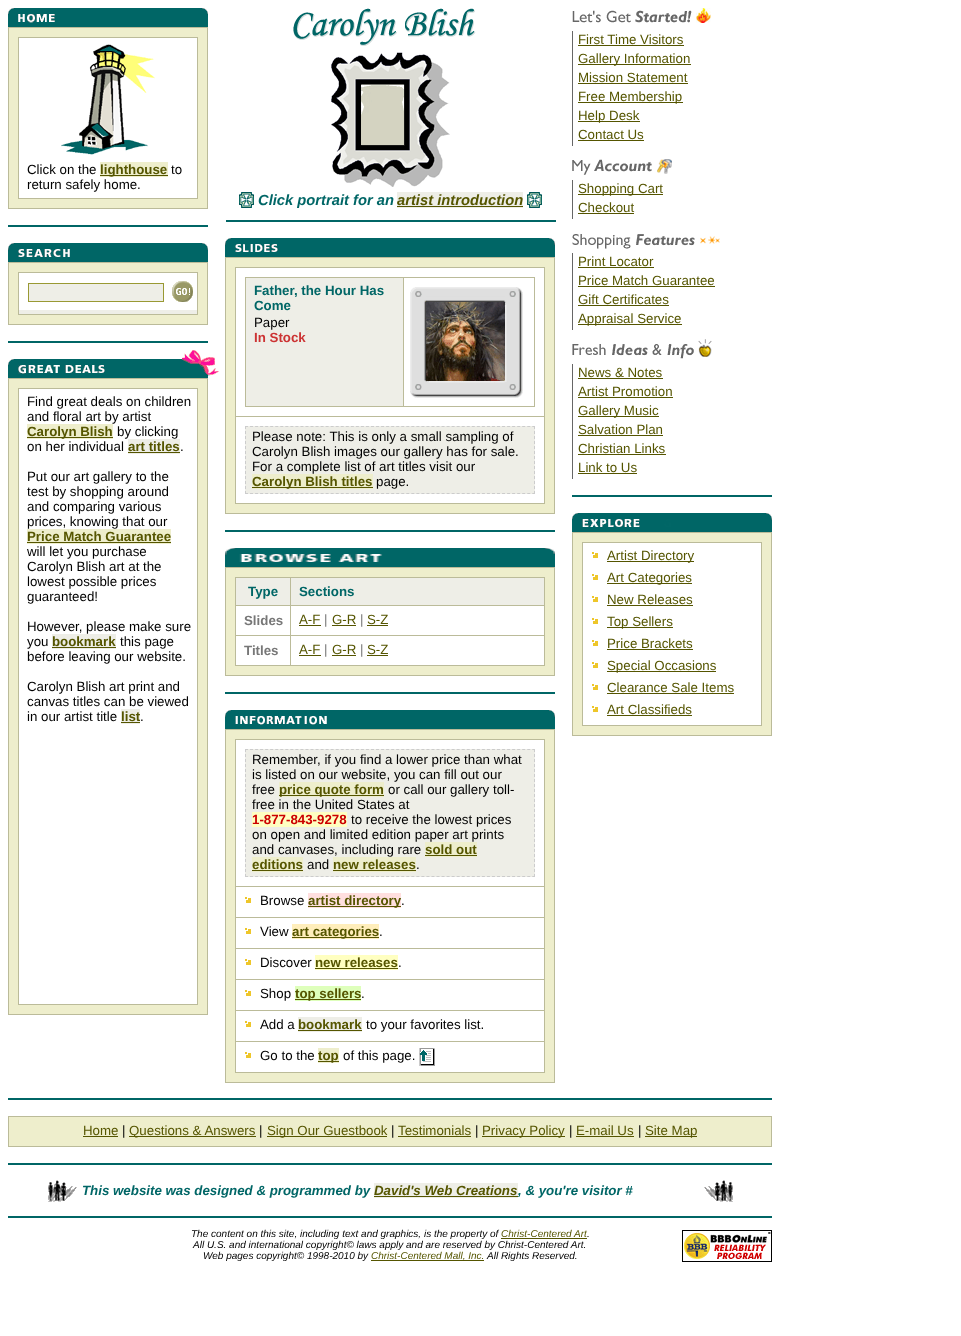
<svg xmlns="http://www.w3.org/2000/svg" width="961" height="1336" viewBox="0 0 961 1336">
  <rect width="100%" height="100%" fill="rgb(255,255,255)"/>
  <image x="8" y="8" width="200" height="19" href="pic1.png"/>
  <rect x="8" y="27" width="200" height="182" fill="rgb(187,187,153)"/>
  <rect x="9" y="28" width="198" height="180" fill="rgb(238,238,204)"/>
  <rect x="18.5" y="37.5" width="179" height="161" fill="rgb(255,255,255)" stroke="rgb(187,187,153)"/>
  <image x="61" y="44" width="94" height="111" href="pic2.png"/>
  <text x="27" y="174" font-family="Liberation Sans" font-size="13.3" fill="rgb(0,0,0)">Click on the</text>
  <rect x="100" y="162" width="68" height="15" fill="rgb(238,238,204)"/>
  <rect x="100" y="175" width="68" height="1" fill="rgb(85,85,0)"/>
  <text x="100" y="174" font-family="Liberation Sans" font-size="13.3" font-weight="bold" fill="rgb(85,85,0)">lighthouse</text>
  <g font-family="Liberation Sans" font-size="13.3" fill="rgb(0,0,0)">
    <text x="171" y="174">to</text>
    <text x="27" y="189">return safely home.</text>
  </g>
  <rect x="8" y="225" width="200" height="2" fill="rgb(0,102,102)"/>
  <image x="8" y="243" width="200" height="19" href="pic3.png"/>
  <rect x="8" y="262" width="200" height="63" fill="rgb(187,187,153)"/>
  <rect x="9" y="263" width="198" height="61" fill="rgb(238,238,204)"/>
  <rect x="19" y="310" width="178" height="4" fill="rgb(238,238,231)"/>
  <rect x="18.5" y="272.5" width="179" height="42" fill="none" stroke="rgb(187,187,153)"/>
  <rect x="19" y="273" width="178" height="37" fill="rgb(255,255,255)"/>
  <rect x="28.5" y="283.5" width="135" height="18" fill="rgb(238,238,231)" stroke="rgb(153,153,51)"/>
  <image x="172" y="281" width="21" height="21" href="pic4.png"/>
  <rect x="8" y="341" width="200" height="2" fill="rgb(0,102,102)"/>
  <image x="8" y="350" width="211" height="28" href="pic5.png"/>
  <rect x="8" y="378" width="200" height="637" fill="rgb(187,187,153)"/>
  <rect x="9" y="379" width="198" height="635" fill="rgb(238,238,204)"/>
  <rect x="18.5" y="388.5" width="179" height="616" fill="rgb(255,255,255)" stroke="rgb(187,187,153)"/>
  <g font-family="Liberation Sans" font-size="13.3" fill="rgb(0,0,0)">
    <text>
      <tspan x="27" y="406">Find great deals on children</tspan>
      <tspan x="27" y="421">and floral art by artist</tspan>
    </text>
  </g>
  <rect x="27" y="424" width="86" height="15" fill="rgb(238,238,204)"/>
  <rect x="27" y="437" width="86" height="1" fill="rgb(85,85,0)"/>
  <text x="27" y="436" font-family="Liberation Sans" font-size="13.3" font-weight="bold" fill="rgb(85,85,0)">Carolyn Blish</text>
  <g font-family="Liberation Sans" font-size="13.3" fill="rgb(0,0,0)">
    <text x="117" y="436">by clicking</text>
    <text x="27" y="451">on her individual</text>
  </g>
  <rect x="128" y="439" width="52" height="15" fill="rgb(238,238,231)"/>
  <text x="128" y="451" font-family="Liberation Sans" font-size="13.3" font-weight="bold" fill="rgb(85,85,0)">art titles</text>
  <rect x="128" y="452" width="52" height="1" fill="rgb(85,85,0)"/>
  <g font-family="Liberation Sans" font-size="13.3" fill="rgb(0,0,0)">
    <text x="180" y="451">.</text>
    <text>
      <tspan x="27" y="481">Put our art gallery to the</tspan>
      <tspan x="27" y="496">test by shopping around</tspan>
      <tspan x="27" y="511">and comparing various</tspan>
      <tspan x="27" y="526">prices, knowing that our</tspan>
    </text>
  </g>
  <rect x="27" y="529" width="144" height="15" fill="rgb(238,238,204)"/>
  <text x="27" y="541" font-family="Liberation Sans" font-size="13.3" font-weight="bold" fill="rgb(85,85,0)">Price Match Guarantee</text>
  <rect x="27" y="542" width="144" height="1" fill="rgb(85,85,0)"/>
  <g font-family="Liberation Sans" font-size="13.3" fill="rgb(0,0,0)">
    <text>
      <tspan x="27" y="556">will let you purchase</tspan>
      <tspan x="27" y="571">Carolyn Blish art at the</tspan>
      <tspan x="27" y="586">lowest possible prices</tspan>
      <tspan x="27" y="601">guaranteed!</tspan>
    </text>
    <text>
      <tspan x="27" y="631">However, please make sure</tspan>
      <tspan x="27" y="646">you</tspan>
    </text>
  </g>
  <rect x="52" y="634" width="64" height="15" fill="rgb(238,238,231)"/>
  <text x="52" y="646" font-family="Liberation Sans" font-size="13.3" font-weight="bold" fill="rgb(85,85,0)">bookmark</text>
  <rect x="52" y="647" width="64" height="1" fill="rgb(85,85,0)"/>
  <g font-family="Liberation Sans" font-size="13.3" fill="rgb(0,0,0)">
    <text x="120" y="646">this page</text>
    <text x="27" y="661">before leaving our website.</text>
    <text>
      <tspan x="27" y="691">Carolyn Blish art print and</tspan>
      <tspan x="27" y="706">canvas titles can be viewed</tspan>
      <tspan x="27" y="721">in our artist title</tspan>
    </text>
  </g>
  <rect x="121" y="709" width="19" height="15" fill="rgb(238,238,231)"/>
  <text x="121" y="721" font-family="Liberation Sans" font-size="13.3" font-weight="bold" fill="rgb(85,85,0)">list</text>
  <rect x="121" y="722" width="19" height="1" fill="rgb(85,85,0)"/>
  <text x="140" y="721" font-family="Liberation Sans" font-size="13.3" fill="rgb(0,0,0)">.</text>
  <image x="293" y="8" width="183" height="38" href="pic6.png"/>
  <image x="331" y="52" width="119" height="135" href="pic7.png"/>
  <image x="239" y="192" width="15" height="16" href="pic8.png"/>
  <text x="258" y="205" font-family="Liberation Sans" font-size="14.75" font-weight="bold" font-style="italic" fill="rgb(0,102,102)">Click portrait for an</text>
  <rect x="397" y="192" width="126" height="16" fill="rgb(238,238,231)"/>
  <text x="397" y="205" font-family="Liberation Sans" font-size="14.75" font-weight="bold" font-style="italic" fill="rgb(85,85,0)">artist introduction</text>
  <rect x="397" y="206" width="126" height="1" fill="rgb(85,85,0)"/>
  <image x="527" y="192" width="15" height="16" href="pic9.png"/>
  <rect x="226" y="220" width="330" height="2" fill="rgb(0,102,102)"/>
  <image x="225" y="238" width="330" height="19" href="pic10.png"/>
  <rect x="225" y="257" width="330" height="257" fill="rgb(187,187,153)"/>
  <rect x="226" y="258" width="328" height="255" fill="rgb(238,238,204)"/>
  <rect x="235" y="267" width="310" height="237" fill="rgb(187,187,153)"/>
  <rect x="236" y="268" width="308" height="148" fill="rgb(255,255,255)"/>
  <rect x="245" y="277" width="290" height="130" fill="rgb(187,187,153)"/>
  <rect x="246" y="278" width="157" height="128" fill="rgb(238,238,231)"/>
  <g font-family="Liberation Sans" font-size="13.3" font-weight="bold" fill="rgb(0,102,102)">
    <text>
      <tspan x="254" y="295">Father, the Hour Has</tspan>
      <tspan x="254" y="310">Come</tspan>
    </text>
  </g>
  <text x="254" y="327" font-family="Liberation Sans" font-size="13.3" fill="rgb(0,0,0)">Paper</text>
  <text x="254" y="342" font-family="Liberation Sans" font-size="13.3" font-weight="bold" fill="rgb(204,51,51)">In Stock</text>
  <rect x="404" y="278" width="130" height="128" fill="rgb(255,255,255)"/>
  <image x="410" y="287" width="113" height="111" href="pic11.png"/>
  <rect x="236" y="417" width="308" height="86" fill="rgb(255,255,255)"/>
  <rect x="245" y="426" width="290" height="68" fill="rgb(238,238,231)"/>
  <path d="M245 426.5H535" fill="none" stroke="rgb(204,204,204)" stroke-dasharray="3 2.04"/>
  <path d="M534.5 426V494" fill="none" stroke="rgb(204,204,204)" stroke-dasharray="3 2"/>
  <path d="M245 493.5H535" fill="none" stroke="rgb(204,204,204)" stroke-dasharray="3 2.04"/>
  <path d="M245.5 426V494" fill="none" stroke="rgb(204,204,204)" stroke-dasharray="3 2"/>
  <g font-family="Liberation Sans" font-size="13.3" fill="rgb(0,0,0)">
    <text>
      <tspan x="252" y="441">Please note: This is only a small sampling of</tspan>
      <tspan x="252" y="456">Carolyn Blish images our gallery has for sale.</tspan>
      <tspan x="252" y="471">For a complete list of art titles visit our</tspan>
    </text>
  </g>
  <rect x="252" y="474" width="121" height="15" fill="rgb(238,238,204)"/>
  <rect x="252" y="487" width="121" height="1" fill="rgb(85,85,0)"/>
  <text x="252" y="486" font-family="Liberation Sans" font-size="13.3" font-weight="bold" fill="rgb(85,85,0)">Carolyn Blish titles</text>
  <text x="376" y="486" font-family="Liberation Sans" font-size="13.3" fill="rgb(0,0,0)">page.</text>
  <rect x="225" y="530" width="330" height="2" fill="rgb(0,102,102)"/>
  <image x="225" y="548" width="330" height="19" href="pic12.png"/>
  <rect x="225" y="567" width="330" height="109" fill="rgb(187,187,153)"/>
  <rect x="226" y="568" width="328" height="107" fill="rgb(238,238,204)"/>
  <rect x="235" y="577" width="310" height="89" fill="rgb(187,187,153)"/>
  <rect x="236" y="578" width="54" height="27" fill="rgb(238,238,231)"/>
  <text x="248" y="596" font-family="Liberation Sans" font-size="13.3" font-weight="bold" fill="rgb(0,102,102)">Type</text>
  <rect x="291" y="578" width="253" height="27" fill="rgb(238,238,231)"/>
  <text x="299" y="596" font-family="Liberation Sans" font-size="13.3" font-weight="bold" fill="rgb(0,102,102)">Sections</text>
  <rect x="236" y="606" width="54" height="29" fill="rgb(255,255,255)"/>
  <text x="244" y="625" font-family="Liberation Sans" font-size="13.3" font-weight="bold" fill="rgb(119,119,119)">Slides</text>
  <rect x="291" y="606" width="253" height="29" fill="rgb(255,255,255)"/>
  <text x="299" y="624" font-family="Liberation Sans" font-size="13.3" fill="rgb(85,85,0)">A-F</text>
  <rect x="299" y="625" width="22" height="1" fill="rgb(85,85,0)"/>
  <text x="324" y="624" font-family="Liberation Sans" font-size="13.3" fill="rgb(119,119,119)">|</text>
  <text x="332" y="624" font-family="Liberation Sans" font-size="13.3" fill="rgb(85,85,0)">G-R</text>
  <rect x="332" y="625" width="24" height="1" fill="rgb(85,85,0)"/>
  <text x="360" y="624" font-family="Liberation Sans" font-size="13.3" fill="rgb(119,119,119)">|</text>
  <text x="367" y="624" font-family="Liberation Sans" font-size="13.3" fill="rgb(85,85,0)">S-Z</text>
  <rect x="367" y="625" width="21" height="1" fill="rgb(85,85,0)"/>
  <rect x="236" y="636" width="54" height="29" fill="rgb(255,255,255)"/>
  <text x="244" y="655" font-family="Liberation Sans" font-size="13.3" font-weight="bold" fill="rgb(119,119,119)">Titles</text>
  <rect x="291" y="636" width="253" height="29" fill="rgb(255,255,255)"/>
  <text x="299" y="654" font-family="Liberation Sans" font-size="13.3" fill="rgb(85,85,0)">A-F</text>
  <rect x="299" y="655" width="22" height="1" fill="rgb(85,85,0)"/>
  <text x="324" y="654" font-family="Liberation Sans" font-size="13.3" fill="rgb(119,119,119)">|</text>
  <text x="332" y="654" font-family="Liberation Sans" font-size="13.3" fill="rgb(85,85,0)">G-R</text>
  <rect x="332" y="655" width="24" height="1" fill="rgb(85,85,0)"/>
  <text x="360" y="654" font-family="Liberation Sans" font-size="13.3" fill="rgb(119,119,119)">|</text>
  <text x="367" y="654" font-family="Liberation Sans" font-size="13.3" fill="rgb(85,85,0)">S-Z</text>
  <rect x="367" y="655" width="21" height="1" fill="rgb(85,85,0)"/>
  <rect x="225" y="692" width="330" height="2" fill="rgb(0,102,102)"/>
  <image x="225" y="710" width="330" height="19" href="pic13.png"/>
  <rect x="225" y="729" width="330" height="354" fill="rgb(187,187,153)"/>
  <rect x="226" y="730" width="328" height="352" fill="rgb(238,238,204)"/>
  <rect x="235" y="739" width="310" height="334" fill="rgb(187,187,153)"/>
  <rect x="236" y="740" width="308" height="146" fill="rgb(255,255,255)"/>
  <rect x="245" y="749" width="290" height="128" fill="rgb(238,238,231)"/>
  <path d="M245 749.5H535" fill="none" stroke="rgb(204,204,204)" stroke-dasharray="3 2.04"/>
  <path d="M534.5 749V877" fill="none" stroke="rgb(204,204,204)" stroke-dasharray="3 2"/>
  <path d="M245 876.5H535" fill="none" stroke="rgb(204,204,204)" stroke-dasharray="3 2.04"/>
  <path d="M245.5 749V877" fill="none" stroke="rgb(204,204,204)" stroke-dasharray="3 2"/>
  <g font-family="Liberation Sans" font-size="13.3" fill="rgb(0,0,0)">
    <text>
      <tspan x="252" y="764">Remember, if you find a lower price than what</tspan>
      <tspan x="252" y="779">is listed on our website, you can fill out our</tspan>
      <tspan x="252" y="794">free</tspan>
    </text>
  </g>
  <rect x="279" y="782" width="105" height="15" fill="rgb(238,238,204)"/>
  <rect x="279" y="795" width="105" height="1" fill="rgb(85,85,0)"/>
  <text x="279" y="794" font-family="Liberation Sans" font-size="13.3" font-weight="bold" fill="rgb(85,85,0)">price quote form</text>
  <g font-family="Liberation Sans" font-size="13.3" fill="rgb(0,0,0)">
    <text x="388" y="794">or call our gallery toll-</text>
    <text x="252" y="809">free in the United States at</text>
  </g>
  <rect x="252" y="812" width="95" height="15" fill="rgb(255,255,193)"/>
  <text x="252" y="824" font-family="Liberation Sans" font-size="13.3" font-weight="bold" fill="rgb(204,0,0)">1-877-843-9278</text>
  <g font-family="Liberation Sans" font-size="13.3" fill="rgb(0,0,0)">
    <text x="351" y="824">to receive the lowest prices</text>
    <text>
      <tspan x="252" y="839">on open and limited edition paper art prints</tspan>
      <tspan x="252" y="854">and canvases, including rare</tspan>
    </text>
  </g>
  <rect x="425" y="842" width="52" height="15" fill="rgb(238,238,204)"/>
  <text x="425" y="854" font-family="Liberation Sans" font-size="13.3" font-weight="bold" fill="rgb(85,85,0)">sold out</text>
  <rect x="425" y="855" width="52" height="1" fill="rgb(85,85,0)"/>
  <rect x="252" y="857" width="51" height="15" fill="rgb(238,238,204)"/>
  <text x="252" y="869" font-family="Liberation Sans" font-size="13.3" font-weight="bold" fill="rgb(85,85,0)">editions</text>
  <rect x="252" y="870" width="51" height="1" fill="rgb(85,85,0)"/>
  <text x="307" y="869" font-family="Liberation Sans" font-size="13.3" fill="rgb(0,0,0)">and</text>
  <rect x="333" y="857" width="83" height="15" fill="rgb(238,238,204)"/>
  <text x="333" y="869" font-family="Liberation Sans" font-size="13.3" font-weight="bold" fill="rgb(85,85,0)">new releases</text>
  <rect x="333" y="870" width="83" height="1" fill="rgb(85,85,0)"/>
  <text x="416" y="869" font-family="Liberation Sans" font-size="13.3" fill="rgb(0,0,0)">.</text>
  <rect x="236" y="887" width="308" height="30" fill="rgb(255,255,255)"/>
  <image x="245" y="897" width="6" height="6" href="pic14.png"/>
  <text x="260" y="905" font-family="Liberation Sans" font-size="13.3" fill="rgb(0,0,0)">Browse</text>
  <rect x="308" y="893" width="93" height="15" fill="rgb(255,223,223)"/>
  <rect x="308" y="906" width="93" height="1" fill="rgb(85,85,0)"/>
  <text x="308" y="905" font-family="Liberation Sans" font-size="13.3" font-weight="bold" fill="rgb(85,85,0)">artist directory</text>
  <text x="401" y="905" font-family="Liberation Sans" font-size="13.3" fill="rgb(0,0,0)">.</text>
  <rect x="236" y="918" width="308" height="30" fill="rgb(255,255,255)"/>
  <image x="245" y="928" width="6" height="6" href="pic14.png"/>
  <text x="260" y="936" font-family="Liberation Sans" font-size="13.3" fill="rgb(0,0,0)">View</text>
  <rect x="292" y="924" width="87" height="15" fill="rgb(255,238,187)"/>
  <rect x="292" y="937" width="87" height="1" fill="rgb(85,85,0)"/>
  <text x="292" y="936" font-family="Liberation Sans" font-size="13.3" font-weight="bold" fill="rgb(85,85,0)">art categories</text>
  <text x="379" y="936" font-family="Liberation Sans" font-size="13.3" fill="rgb(0,0,0)">.</text>
  <rect x="236" y="949" width="308" height="30" fill="rgb(255,255,255)"/>
  <image x="245" y="959" width="6" height="6" href="pic14.png"/>
  <text x="260" y="967" font-family="Liberation Sans" font-size="13.3" fill="rgb(0,0,0)">Discover</text>
  <rect x="315" y="955" width="83" height="15" fill="rgb(255,255,193)"/>
  <text x="315" y="967" font-family="Liberation Sans" font-size="13.3" font-weight="bold" fill="rgb(85,85,0)">new releases</text>
  <rect x="315" y="968" width="83" height="1" fill="rgb(85,85,0)"/>
  <text x="398" y="967" font-family="Liberation Sans" font-size="13.3" fill="rgb(0,0,0)">.</text>
  <rect x="236" y="980" width="308" height="30" fill="rgb(255,255,255)"/>
  <image x="245" y="990" width="6" height="6" href="pic14.png"/>
  <text x="260" y="998" font-family="Liberation Sans" font-size="13.3" fill="rgb(0,0,0)">Shop</text>
  <rect x="295" y="986" width="66" height="15" fill="rgb(222,255,187)"/>
  <rect x="295" y="999" width="66" height="1" fill="rgb(85,85,0)"/>
  <text x="295" y="998" font-family="Liberation Sans" font-size="13.3" font-weight="bold" fill="rgb(85,85,0)">top sellers</text>
  <text x="361" y="998" font-family="Liberation Sans" font-size="13.3" fill="rgb(0,0,0)">.</text>
  <rect x="236" y="1011" width="308" height="30" fill="rgb(255,255,255)"/>
  <image x="245" y="1021" width="6" height="6" href="pic14.png"/>
  <text x="260" y="1029" font-family="Liberation Sans" font-size="13.3" fill="rgb(0,0,0)">Add a</text>
  <rect x="298" y="1017" width="64" height="15" fill="rgb(238,238,231)"/>
  <text x="298" y="1029" font-family="Liberation Sans" font-size="13.3" font-weight="bold" fill="rgb(85,85,0)">bookmark</text>
  <rect x="298" y="1030" width="64" height="1" fill="rgb(85,85,0)"/>
  <text x="366" y="1029" font-family="Liberation Sans" font-size="13.3" fill="rgb(0,0,0)">to your favorites list.</text>
  <rect x="236" y="1042" width="308" height="30" fill="rgb(255,255,255)"/>
  <image x="245" y="1052" width="6" height="6" href="pic14.png"/>
  <text x="260" y="1060" font-family="Liberation Sans" font-size="13.3" fill="rgb(0,0,0)">Go to the</text>
  <rect x="318" y="1048" width="21" height="15" fill="rgb(238,238,204)"/>
  <rect x="318" y="1061" width="21" height="1" fill="rgb(85,85,0)"/>
  <text x="318" y="1060" font-family="Liberation Sans" font-size="13.3" font-weight="bold" fill="rgb(85,85,0)">top</text>
  <text x="343" y="1060" font-family="Liberation Sans" font-size="13.3" fill="rgb(0,0,0)">of this page.</text>
  <image x="419" y="1048" width="16" height="18" href="pic15.png"/>
  <image x="572" y="10" width="120" height="13" href="pic16.png"/>
  <image x="696" y="8" width="15" height="15" href="pic17.png"/>
  <rect x="572" y="31" width="1" height="115" fill="rgb(102,102,102)"/>
  <text x="578" y="44" font-family="Liberation Sans" font-size="13.3" fill="rgb(85,85,0)">First Time Visitors</text>
  <rect x="578" y="45" width="106" height="1" fill="rgb(85,85,0)"/>
  <rect x="578" y="64" width="113" height="1" fill="rgb(85,85,0)"/>
  <g font-family="Liberation Sans" font-size="13.3" fill="rgb(85,85,0)">
    <text>
      <tspan x="578" y="63">Gallery Information</tspan>
      <tspan x="578" y="82">Mission Statement</tspan>
    </text>
  </g>
  <rect x="578" y="83" width="110" height="1" fill="rgb(85,85,0)"/>
  <rect x="578" y="102" width="105" height="1" fill="rgb(85,85,0)"/>
  <text x="578" y="101" font-family="Liberation Sans" font-size="13.3" fill="rgb(85,85,0)">Free Membership</text>
  <rect x="578" y="121" width="62" height="1" fill="rgb(85,85,0)"/>
  <g font-family="Liberation Sans" font-size="13.3" fill="rgb(85,85,0)">
    <text>
      <tspan x="578" y="120">Help Desk</tspan>
      <tspan x="578" y="139">Contact Us</tspan>
    </text>
  </g>
  <rect x="578" y="140" width="66" height="1" fill="rgb(85,85,0)"/>
  <image x="572" y="159" width="80" height="16" href="pic18.png"/>
  <image x="657" y="159" width="15" height="15" href="pic19.png"/>
  <rect x="572" y="180" width="1" height="39" fill="rgb(102,102,102)"/>
  <rect x="578" y="194" width="85" height="1" fill="rgb(85,85,0)"/>
  <g font-family="Liberation Sans" font-size="13.3" fill="rgb(85,85,0)">
    <text>
      <tspan x="578" y="193">Shopping Cart</tspan>
      <tspan x="578" y="212">Checkout</tspan>
    </text>
  </g>
  <rect x="578" y="213" width="56" height="1" fill="rgb(85,85,0)"/>
  <image x="572" y="234" width="123" height="15" href="pic20.png"/>
  <image x="700" y="236" width="20" height="8" href="pic21.png"/>
  <rect x="572" y="253" width="1" height="77" fill="rgb(102,102,102)"/>
  <text x="578" y="266" font-family="Liberation Sans" font-size="13.3" fill="rgb(85,85,0)">Print Locator</text>
  <rect x="578" y="267" width="76" height="1" fill="rgb(85,85,0)"/>
  <text x="578" y="285" font-family="Liberation Sans" font-size="13.3" fill="rgb(85,85,0)">Price Match Guarantee</text>
  <rect x="578" y="286" width="137" height="1" fill="rgb(85,85,0)"/>
  <text x="578" y="304" font-family="Liberation Sans" font-size="13.3" fill="rgb(85,85,0)">Gift Certificates</text>
  <rect x="578" y="305" width="91" height="1" fill="rgb(85,85,0)"/>
  <rect x="578" y="324" width="104" height="1" fill="rgb(85,85,0)"/>
  <text x="578" y="323" font-family="Liberation Sans" font-size="13.3" fill="rgb(85,85,0)">Appraisal Service</text>
  <image x="572" y="344" width="122" height="15" href="pic22.png"/>
  <image x="698" y="339" width="14" height="18" href="pic23.png"/>
  <rect x="572" y="364" width="1" height="115" fill="rgb(102,102,102)"/>
  <text x="578" y="377" font-family="Liberation Sans" font-size="13.3" fill="rgb(85,85,0)">News &amp; Notes</text>
  <rect x="578" y="378" width="85" height="1" fill="rgb(85,85,0)"/>
  <text x="578" y="396" font-family="Liberation Sans" font-size="13.3" fill="rgb(85,85,0)">Artist Promotion</text>
  <rect x="578" y="397" width="95" height="1" fill="rgb(85,85,0)"/>
  <rect x="578" y="416" width="81" height="1" fill="rgb(85,85,0)"/>
  <g font-family="Liberation Sans" font-size="13.3" fill="rgb(85,85,0)">
    <text>
      <tspan x="578" y="415">Gallery Music</tspan>
      <tspan x="578" y="434">Salvation Plan</tspan>
    </text>
  </g>
  <rect x="578" y="435" width="85" height="1" fill="rgb(85,85,0)"/>
  <text x="578" y="453" font-family="Liberation Sans" font-size="13.3" fill="rgb(85,85,0)">Christian Links</text>
  <rect x="578" y="454" width="88" height="1" fill="rgb(85,85,0)"/>
  <text x="578" y="472" font-family="Liberation Sans" font-size="13.3" fill="rgb(85,85,0)">Link to Us</text>
  <rect x="578" y="473" width="59" height="1" fill="rgb(85,85,0)"/>
  <rect x="572" y="495" width="200" height="2" fill="rgb(0,102,102)"/>
  <image x="572" y="513" width="200" height="19" href="pic24.png"/>
  <rect x="572" y="532" width="200" height="204" fill="rgb(187,187,153)"/>
  <rect x="573" y="533" width="198" height="202" fill="rgb(238,238,204)"/>
  <rect x="582.5" y="542.5" width="179" height="183" fill="rgb(255,255,255)" stroke="rgb(187,187,153)"/>
  <image x="592" y="552" width="6" height="6" href="pic14.png"/>
  <rect x="607" y="561" width="87" height="1" fill="rgb(85,85,0)"/>
  <text x="607" y="560" font-family="Liberation Sans" font-size="13.3" fill="rgb(85,85,0)">Artist Directory</text>
  <image x="592" y="574" width="6" height="6" href="pic14.png"/>
  <rect x="607" y="583" width="85" height="1" fill="rgb(85,85,0)"/>
  <text x="607" y="582" font-family="Liberation Sans" font-size="13.3" fill="rgb(85,85,0)">Art Categories</text>
  <image x="592" y="596" width="6" height="6" href="pic14.png"/>
  <text x="607" y="604" font-family="Liberation Sans" font-size="13.3" fill="rgb(85,85,0)">New Releases</text>
  <rect x="607" y="605" width="86" height="1" fill="rgb(85,85,0)"/>
  <image x="592" y="618" width="6" height="6" href="pic14.png"/>
  <rect x="607" y="627" width="66" height="1" fill="rgb(85,85,0)"/>
  <text x="607" y="626" font-family="Liberation Sans" font-size="13.3" fill="rgb(85,85,0)">Top Sellers</text>
  <image x="592" y="640" width="6" height="6" href="pic14.png"/>
  <text x="607" y="648" font-family="Liberation Sans" font-size="13.3" fill="rgb(85,85,0)">Price Brackets</text>
  <rect x="607" y="649" width="86" height="1" fill="rgb(85,85,0)"/>
  <image x="592" y="662" width="6" height="6" href="pic14.png"/>
  <rect x="607" y="671" width="109" height="1" fill="rgb(85,85,0)"/>
  <text x="607" y="670" font-family="Liberation Sans" font-size="13.3" fill="rgb(85,85,0)">Special Occasions</text>
  <image x="592" y="684" width="6" height="6" href="pic14.png"/>
  <text x="607" y="692" font-family="Liberation Sans" font-size="13.3" fill="rgb(85,85,0)">Clearance Sale Items</text>
  <rect x="607" y="693" width="127" height="1" fill="rgb(85,85,0)"/>
  <image x="592" y="706" width="6" height="6" href="pic14.png"/>
  <text x="607" y="714" font-family="Liberation Sans" font-size="13.3" fill="rgb(85,85,0)">Art Classifieds</text>
  <rect x="607" y="715" width="85" height="1" fill="rgb(85,85,0)"/>
  <rect x="8" y="1098" width="764" height="2" fill="rgb(0,102,102)"/>
  <rect x="8.5" y="1116.5" width="763" height="30" fill="rgb(238,238,204)" stroke="rgb(187,187,153)"/>
  <text x="83" y="1135" font-family="Liberation Sans" font-size="13.3" fill="rgb(85,85,0)">Home</text>
  <rect x="83" y="1136" width="35" height="1" fill="rgb(85,85,0)"/>
  <text x="122" y="1135" font-family="Liberation Sans" font-size="13.3" fill="rgb(0,0,0)">|</text>
  <rect x="129" y="1136" width="127" height="1" fill="rgb(85,85,0)"/>
  <text x="129" y="1135" font-family="Liberation Sans" font-size="13.3" fill="rgb(85,85,0)">Questions &amp; Answers</text>
  <text x="259" y="1135" font-family="Liberation Sans" font-size="13.3" fill="rgb(0,0,0)">|</text>
  <rect x="267" y="1136" width="120" height="1" fill="rgb(85,85,0)"/>
  <text x="267" y="1135" font-family="Liberation Sans" font-size="13.3" fill="rgb(85,85,0)">Sign Our Guestbook</text>
  <text x="391" y="1135" font-family="Liberation Sans" font-size="13.3" fill="rgb(0,0,0)">|</text>
  <text x="398" y="1135" font-family="Liberation Sans" font-size="13.3" fill="rgb(85,85,0)">Testimonials</text>
  <rect x="398" y="1136" width="73" height="1" fill="rgb(85,85,0)"/>
  <text x="475" y="1135" font-family="Liberation Sans" font-size="13.3" fill="rgb(0,0,0)">|</text>
  <rect x="482" y="1136" width="83" height="1" fill="rgb(85,85,0)"/>
  <text x="482" y="1135" font-family="Liberation Sans" font-size="13.3" fill="rgb(85,85,0)">Privacy Policy</text>
  <text x="569" y="1135" font-family="Liberation Sans" font-size="13.3" fill="rgb(0,0,0)">|</text>
  <text x="576" y="1135" font-family="Liberation Sans" font-size="13.3" fill="rgb(85,85,0)">E-mail Us</text>
  <rect x="576" y="1136" width="58" height="1" fill="rgb(85,85,0)"/>
  <text x="638" y="1135" font-family="Liberation Sans" font-size="13.3" fill="rgb(0,0,0)">|</text>
  <rect x="645" y="1136" width="52" height="1" fill="rgb(85,85,0)"/>
  <text x="645" y="1135" font-family="Liberation Sans" font-size="13.3" fill="rgb(85,85,0)">Site Map</text>
  <rect x="8" y="1163" width="764" height="2" fill="rgb(0,102,102)"/>
  <image x="48" y="1180" width="29" height="22" href="pic25.png"/>
  <text x="82" y="1195" font-family="Liberation Sans" font-size="13.3" font-weight="bold" font-style="italic" fill="rgb(0,102,102)">This website was designed &amp; programmed by</text>
  <rect x="374" y="1183" width="144" height="15" fill="rgb(238,238,231)"/>
  <text x="374" y="1195" font-family="Liberation Sans" font-size="13.3" font-weight="bold" font-style="italic" fill="rgb(85,85,0)">David's Web Creations</text>
  <rect x="374" y="1196" width="144" height="1" fill="rgb(85,85,0)"/>
  <text x="518" y="1195" font-family="Liberation Sans" font-size="13.3" font-weight="bold" font-style="italic" fill="rgb(0,102,102)">, &amp; you're visitor #</text>
  <image x="704" y="1180" width="29" height="22" href="pic26.png"/>
  <rect x="8" y="1216" width="764" height="2" fill="rgb(0,102,102)"/>
  <text x="191" y="1237" font-family="Liberation Sans" font-size="10" font-style="italic" fill="rgb(0,0,0)">The content on this site, including text and graphics, is the property of</text>
  <text x="501" y="1237" font-family="Liberation Sans" font-size="10" font-style="italic" fill="rgb(85,85,0)">Christ-Centered Art</text>
  <text x="587" y="1237" font-family="Liberation Sans" font-size="10" font-style="italic" fill="rgb(0,0,0)">.</text>
  <rect x="501" y="1238" width="86" height="1" fill="rgb(85,85,0)"/>
  <image x="682" y="1230" width="90" height="32" href="pic27.png"/>
  <g font-family="Liberation Sans" font-size="10" font-style="italic" fill="rgb(0,0,0)">
    <text x="193" y="1248">All U.S. and international copyright© laws apply and are reserved by Christ-Centered Art.</text>
    <text x="203" y="1259">Web pages copyright© 1998-2010 by</text>
  </g>
  <rect x="371" y="1260" width="113" height="1" fill="rgb(85,85,0)"/>
  <text x="371" y="1259" font-family="Liberation Sans" font-size="10" font-style="italic" fill="rgb(85,85,0)">Christ-Centered Mall, Inc.</text>
  <text x="487" y="1259" font-family="Liberation Sans" font-size="10" font-style="italic" fill="rgb(0,0,0)">All Rights Reserved.</text>
</svg>
